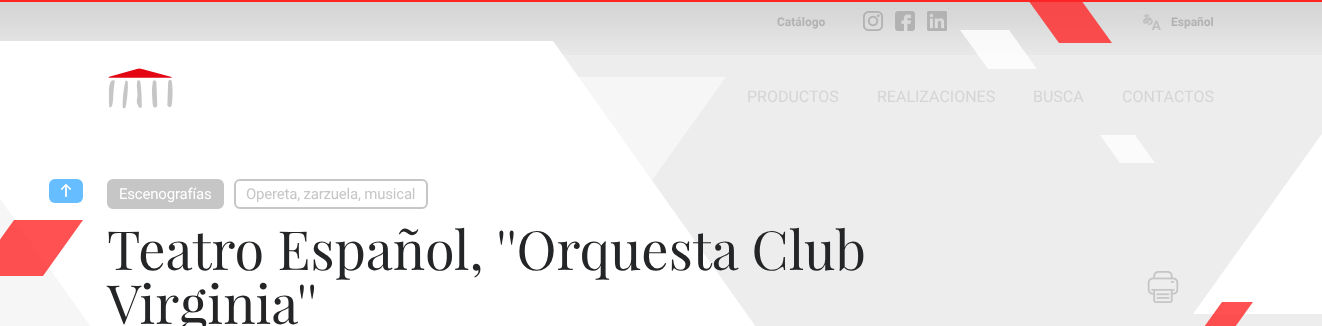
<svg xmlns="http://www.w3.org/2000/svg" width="1322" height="326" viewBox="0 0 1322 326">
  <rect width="100%" height="100%" fill="rgb(237,237,237)"/>
  <image x="0" y="2" width="1322" height="53" href="pic1.png"/>
  <text x="777" y="26" font-family="Roboto" font-size="12" font-weight="bold" fill="rgb(178,178,178)">Catálogo</text>
  <image x="863" y="11" width="20" height="20" href="pic2.png"/>
  <image x="895" y="11" width="20" height="20" href="pic3.png"/>
  <image x="927" y="11" width="20" height="20" href="pic4.png"/>
  <image x="1143" y="14" width="18" height="16" href="pic5.png"/>
  <text x="1171" y="26" font-family="Roboto" font-size="12" font-weight="bold" fill="rgb(178,178,178)">Español</text>
  <path d="M-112 41H553L756 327H91Z" fill="rgb(255,255,255)"/>
  <path d="M-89 77H726L522 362H-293Z" fill="rgba(255,255,255,0.48)"/>
  <image x="108" y="68" width="65" height="41" href="pic6.png"/>
  <g font-family="Roboto" font-size="16" fill="rgb(213,213,213)">
    <text x="747" y="102">PRODUCTOS</text>
    <text x="877" y="102">REALIZACIONES</text>
    <text x="1033" y="102">BUSCA</text>
    <text x="1122" y="102">CONTACTOS</text>
  </g>
  <path d="M960 30H1009L1037 69H988Z" fill="rgba(255,255,255,0.8)"/>
  <path d="M1028 0H1081L1112 43H1059Z" fill="rgba(255,37,37,0.8)"/>
  <rect x="0" y="0" width="1322" height="2" fill="rgb(255,37,37)"/>
  <path d="M1100 135H1135L1155 163H1120Z" fill="rgb(251,251,251)"/>
  <path d="M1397 29H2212L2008 314H1193Z" fill="rgb(255,255,255)"/>
  <path d="M14 220H83L43 276H-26Z" fill="rgba(255,37,37,0.8)"/>
  <rect x="49" y="179" width="34" height="24" rx="6" fill="rgb(102,189,255)"/>
  <image x="61" y="184" width="10" height="13" href="pic7.png"/>
  <rect x="108" y="180" width="115" height="28" rx="5" fill="rgb(198,198,198)" stroke="rgb(198,198,198)" stroke-width="2"/>
  <text x="119" y="199" font-family="Roboto" font-size="15" letter-spacing="-0.2" fill="rgb(255,255,255)">Escenografías</text>
  <rect x="235" y="180" width="192" height="28" rx="5" fill="none" stroke="rgb(198,198,198)" stroke-width="2"/>
  <text x="246" y="199" font-family="Roboto" font-size="15" letter-spacing="-0.2" fill="rgb(198,198,198)">Opereta, zarzuela, musical</text>
  <g font-family="Playfair Display" font-size="54" fill="rgb(35,37,39)">
    <text>
      <tspan x="107" y="270">Teatro Español, ''Orquesta Club</tspan>
      <tspan x="107" y="324">Virginia''</tspan>
    </text>
  </g>
  <image x="1147" y="271" width="32" height="32" href="pic8.png"/>
  <path d="M1222 302H1253L1235 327H1204Z" fill="rgba(255,37,37,0.8)"/>
</svg>
